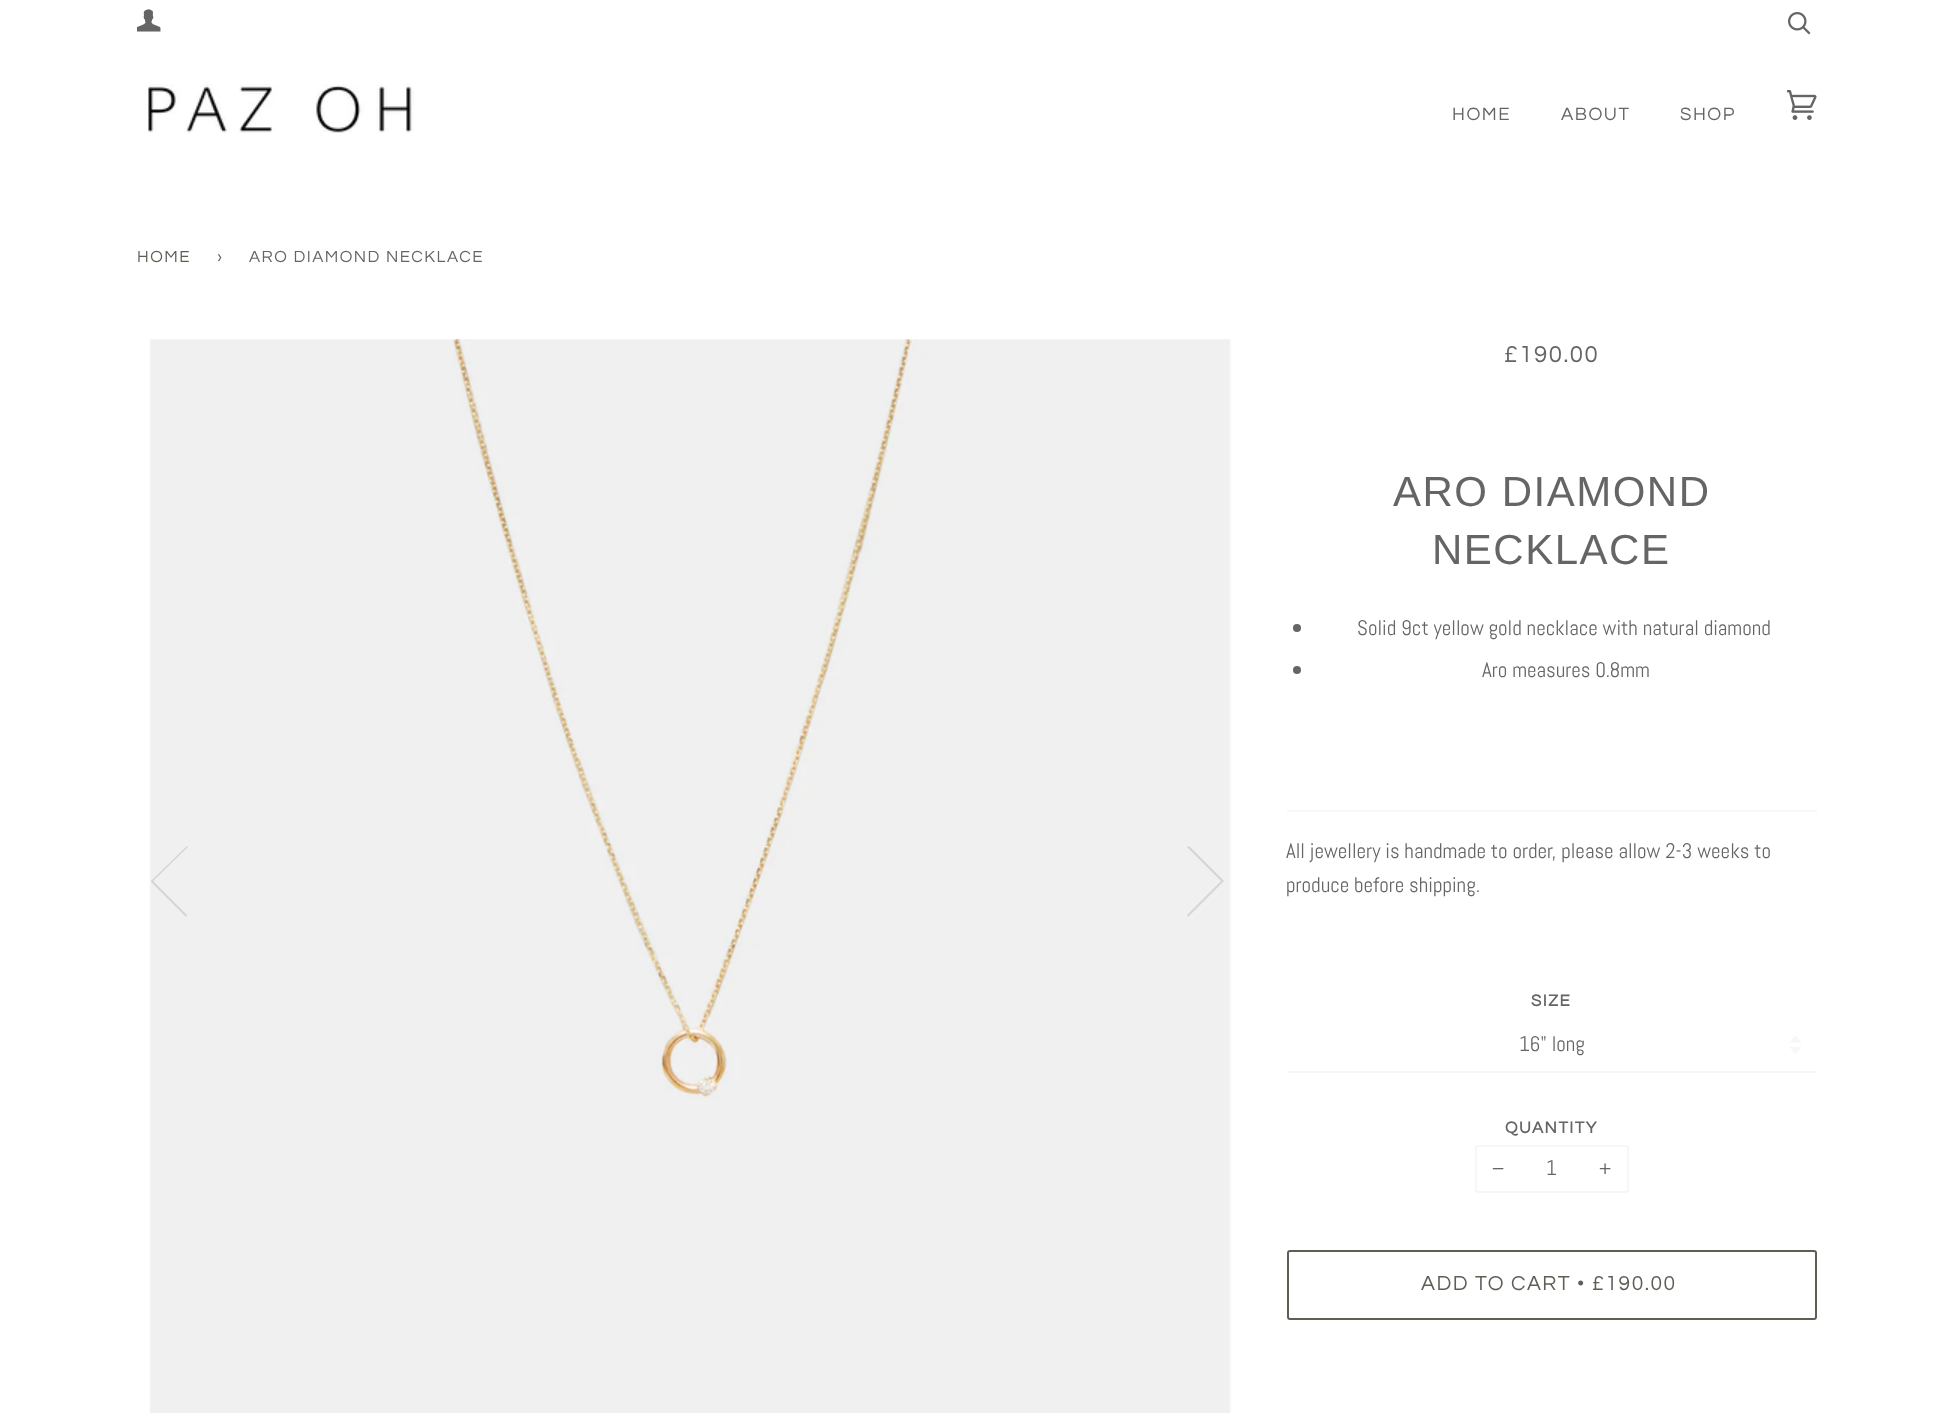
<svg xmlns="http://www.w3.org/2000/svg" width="1953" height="1413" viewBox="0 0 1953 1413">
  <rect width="100%" height="100%" fill="rgb(255,255,255)"/>
  <image x="137" y="9" width="24" height="23" href="pic1.png"/>
  <image x="1788" y="12" width="23" height="23" href="pic2.png"/>
  <image x="148" y="84" width="266" height="49" href="pic3.png"/>
  <g font-family="Questrial" font-size="18.5" letter-spacing="1.5" fill="rgb(101,101,101)">
    <text x="1452" y="120">HOME</text>
    <text x="1561" y="120">ABOUT</text>
    <text x="1680" y="120">SHOP</text>
  </g>
  <image x="1787" y="90" width="30" height="30" href="pic4.png"/>
  <text x="137" y="262" font-family="Questrial" font-size="16.75" letter-spacing="1.5" fill="rgb(95,94,85)">HOME</text>
  <g font-family="Questrial" font-size="16.75" letter-spacing="1.5" fill="rgb(101,101,101)">
    <text x="217" y="262">›</text>
    <text x="249" y="262">ARO DIAMOND NECKLACE</text>
  </g>
  <image x="149" y="339" width="1082" height="1074" href="pic5.png"/>
  <path d="M151 882L186 917L187 915L153 881L188 847L187 846L151 881Z" fill="rgb(213,213,213)"/>
  <path d="M1223 880L1189 846L1187 847L1221 881L1187 915L1188 917L1224 881Z" fill="rgb(213,213,213)"/>
  <text x="1504" y="362" font-family="Questrial" font-size="24" letter-spacing="1.5" fill="rgb(101,101,101)">£190.00</text>
  <g font-family="Liberation Sans" font-size="42" letter-spacing="1.5" fill="rgb(101,101,101)">
    <text x="1393" y="506">ARO DIAMOND</text>
    <text x="1432" y="564">NECKLACE</text>
  </g>
  <circle cx="1297" cy="628" r="4" fill="rgb(101,101,101)"/>
  <text x="1357" y="635" font-family="Abel" font-size="21" fill="rgb(101,101,101)">Solid 9ct yellow gold necklace with natural diamond</text>
  <circle cx="1297" cy="670" r="4" fill="rgb(101,101,101)"/>
  <text x="1482" y="677" font-family="Abel" font-size="21" fill="rgb(101,101,101)">Aro measures 0.8mm</text>
  <rect x="1287" y="810" width="530" height="2" fill="rgb(247,247,247)"/>
  <g font-family="Abel" font-size="21" fill="rgb(101,101,101)">
    <text>
      <tspan x="1286" y="858">All jewellery is handmade to order, please allow 2-3 weeks to</tspan>
      <tspan x="1286" y="892">produce before shipping.</tspan>
    </text>
  </g>
  <text x="1531" y="1006" font-family="Questrial" font-size="16.75" font-weight="bold" letter-spacing="1.5" fill="rgb(101,101,101)">SIZE</text>
  <image x="1790" y="1035" width="11" height="19" href="pic6.png"/>
  <rect x="1287" y="1071" width="530" height="2" fill="rgb(247,247,247)"/>
  <text x="1519" y="1051" font-family="Abel" font-size="21" fill="rgb(101,101,101)">16" long</text>
  <text x="1505" y="1133" font-family="Questrial" font-size="16.75" font-weight="bold" letter-spacing="1.5" fill="rgb(101,101,101)">QUANTITY</text>
  <rect x="1476" y="1146" width="152" height="46" rx="2" fill="none" stroke="rgb(247,247,247)" stroke-width="2"/>
  <g font-family="Abel" font-size="21" fill="rgb(101,101,101)">
    <text x="1492" y="1176">−</text>
    <text x="1546" y="1175">1</text>
    <text x="1599" y="1176">+</text>
  </g>
  <rect x="1288" y="1251" width="528" height="68" rx="2" fill="none" stroke="rgb(95,94,85)" stroke-width="2"/>
  <text x="1421" y="1290" font-family="Questrial" font-size="21" letter-spacing="1.5" fill="rgb(95,94,85)">ADD TO CART</text>
  <text x="1577" y="1290" font-family="Liberation Serif" font-size="21" letter-spacing="1.5" fill="rgb(95,94,85)">•</text>
  <text x="1592" y="1290" font-family="Questrial" font-size="21" letter-spacing="1.5" fill="rgb(95,94,85)">£190.00</text>
</svg>
